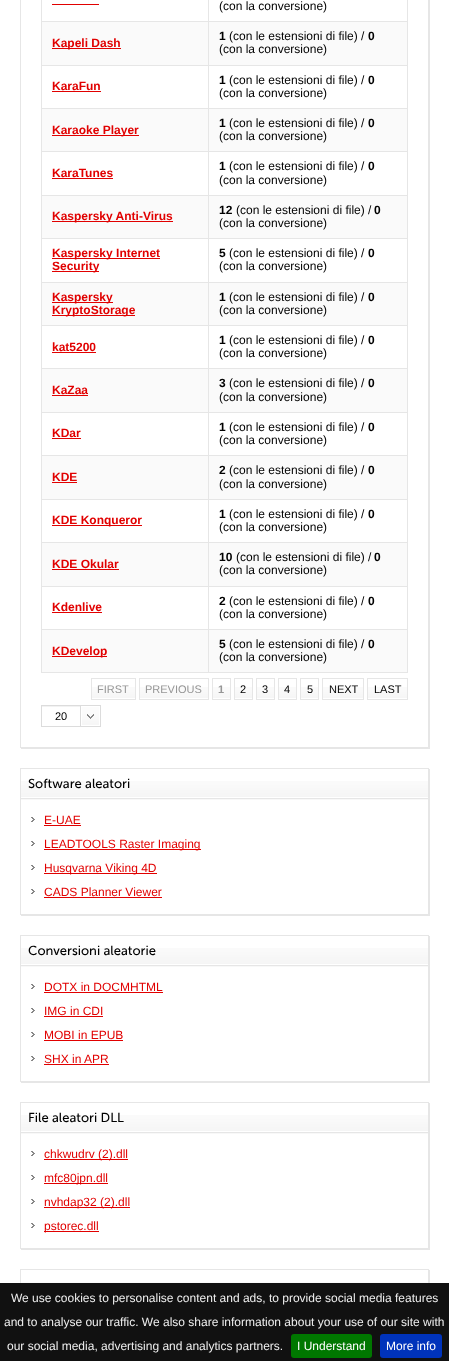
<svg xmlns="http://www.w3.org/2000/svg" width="449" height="1361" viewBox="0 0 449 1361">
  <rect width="100%" height="100%" fill="rgb(255,255,255)"/>
  <path d="M21 748V749H430V-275H429V748Z" fill="rgb(230,230,230)"/>
  <rect x="20.5" y="-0.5" width="408" height="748" fill="none" stroke="rgb(230,230,230)"/>
  <rect x="407" y="0" width="1" height="673" fill="rgb(230,230,230)"/>
  <rect x="208" y="672" width="200" height="1" fill="rgb(230,230,230)"/>
  <rect x="208" y="629" width="1" height="44" fill="rgb(230,230,230)"/>
  <rect x="208" y="629" width="200" height="1" fill="rgb(230,230,230)"/>
  <rect x="208" y="586" width="1" height="44" fill="rgb(230,230,230)"/>
  <rect x="208" y="586" width="200" height="1" fill="rgb(230,230,230)"/>
  <rect x="208" y="542" width="1" height="45" fill="rgb(230,230,230)"/>
  <rect x="208" y="542" width="200" height="1" fill="rgb(230,230,230)"/>
  <rect x="208" y="499" width="1" height="44" fill="rgb(230,230,230)"/>
  <rect x="208" y="499" width="200" height="1" fill="rgb(230,230,230)"/>
  <rect x="208" y="455" width="1" height="45" fill="rgb(230,230,230)"/>
  <rect x="208" y="455" width="200" height="1" fill="rgb(230,230,230)"/>
  <rect x="208" y="412" width="1" height="44" fill="rgb(230,230,230)"/>
  <rect x="208" y="412" width="200" height="1" fill="rgb(230,230,230)"/>
  <rect x="208" y="368" width="1" height="45" fill="rgb(230,230,230)"/>
  <rect x="208" y="368" width="200" height="1" fill="rgb(230,230,230)"/>
  <rect x="208" y="325" width="1" height="44" fill="rgb(230,230,230)"/>
  <rect x="208" y="325" width="200" height="1" fill="rgb(230,230,230)"/>
  <rect x="208" y="282" width="1" height="44" fill="rgb(230,230,230)"/>
  <rect x="208" y="282" width="200" height="1" fill="rgb(230,230,230)"/>
  <rect x="208" y="238" width="1" height="45" fill="rgb(230,230,230)"/>
  <rect x="208" y="238" width="200" height="1" fill="rgb(230,230,230)"/>
  <rect x="208" y="195" width="1" height="44" fill="rgb(230,230,230)"/>
  <rect x="208" y="195" width="200" height="1" fill="rgb(230,230,230)"/>
  <rect x="208" y="151" width="1" height="45" fill="rgb(230,230,230)"/>
  <rect x="208" y="151" width="200" height="1" fill="rgb(230,230,230)"/>
  <rect x="208" y="108" width="1" height="44" fill="rgb(230,230,230)"/>
  <rect x="208" y="108" width="200" height="1" fill="rgb(230,230,230)"/>
  <rect x="208" y="65" width="1" height="44" fill="rgb(230,230,230)"/>
  <rect x="208" y="65" width="200" height="1" fill="rgb(230,230,230)"/>
  <rect x="208" y="21" width="1" height="45" fill="rgb(230,230,230)"/>
  <rect x="208" y="21" width="200" height="1" fill="rgb(230,230,230)"/>
  <rect x="208" y="0" width="1" height="22" fill="rgb(230,230,230)"/>
  <rect x="41" y="672" width="168" height="1" fill="rgb(230,230,230)"/>
  <rect x="41" y="629" width="1" height="44" fill="rgb(230,230,230)"/>
  <rect x="41" y="629" width="168" height="1" fill="rgb(230,230,230)"/>
  <rect x="41" y="586" width="1" height="44" fill="rgb(230,230,230)"/>
  <rect x="41" y="586" width="168" height="1" fill="rgb(230,230,230)"/>
  <rect x="41" y="542" width="1" height="45" fill="rgb(230,230,230)"/>
  <rect x="41" y="542" width="168" height="1" fill="rgb(230,230,230)"/>
  <rect x="41" y="499" width="1" height="44" fill="rgb(230,230,230)"/>
  <rect x="41" y="499" width="168" height="1" fill="rgb(230,230,230)"/>
  <rect x="41" y="455" width="1" height="45" fill="rgb(230,230,230)"/>
  <rect x="41" y="455" width="168" height="1" fill="rgb(230,230,230)"/>
  <rect x="41" y="412" width="1" height="44" fill="rgb(230,230,230)"/>
  <rect x="41" y="412" width="168" height="1" fill="rgb(230,230,230)"/>
  <rect x="41" y="368" width="1" height="45" fill="rgb(230,230,230)"/>
  <rect x="41" y="368" width="168" height="1" fill="rgb(230,230,230)"/>
  <rect x="41" y="325" width="1" height="44" fill="rgb(230,230,230)"/>
  <rect x="41" y="325" width="168" height="1" fill="rgb(230,230,230)"/>
  <rect x="41" y="282" width="1" height="44" fill="rgb(230,230,230)"/>
  <rect x="41" y="282" width="168" height="1" fill="rgb(230,230,230)"/>
  <rect x="41" y="238" width="1" height="45" fill="rgb(230,230,230)"/>
  <rect x="41" y="238" width="168" height="1" fill="rgb(230,230,230)"/>
  <rect x="41" y="195" width="1" height="44" fill="rgb(230,230,230)"/>
  <rect x="41" y="195" width="168" height="1" fill="rgb(230,230,230)"/>
  <rect x="41" y="151" width="1" height="45" fill="rgb(230,230,230)"/>
  <rect x="41" y="151" width="168" height="1" fill="rgb(230,230,230)"/>
  <rect x="41" y="108" width="1" height="44" fill="rgb(230,230,230)"/>
  <rect x="41" y="108" width="168" height="1" fill="rgb(230,230,230)"/>
  <rect x="41" y="65" width="1" height="44" fill="rgb(230,230,230)"/>
  <rect x="41" y="65" width="168" height="1" fill="rgb(230,230,230)"/>
  <rect x="41" y="21" width="1" height="45" fill="rgb(230,230,230)"/>
  <rect x="41" y="21" width="168" height="1" fill="rgb(230,230,230)"/>
  <rect x="41" y="0" width="1" height="22" fill="rgb(230,230,230)"/>
  <rect x="52" y="4" width="47" height="1" fill="rgb(225,0,0)"/>
  <text x="219" y="10" font-family="Liberation Sans" font-size="12" fill="rgb(0,0,0)">(con la conversione)</text>
  <rect x="42" y="22" width="166" height="43" fill="rgb(250,250,250)"/>
  <rect x="52" y="48" width="69" height="1" fill="rgb(225,0,0)"/>
  <text x="52" y="47" font-family="Liberation Sans" font-size="12" font-weight="bold" fill="rgb(225,0,0)">Kapeli Dash</text>
  <rect x="209" y="22" width="198" height="43" fill="rgb(250,250,250)"/>
  <text x="219" y="40" font-family="Liberation Sans" font-size="12" font-weight="bold" fill="rgb(0,0,0)">1</text>
  <text x="229" y="40" font-family="Liberation Sans" font-size="12" fill="rgb(0,0,0)">(con le estensioni di file) /</text>
  <text x="368" y="40" font-family="Liberation Sans" font-size="12" font-weight="bold" fill="rgb(0,0,0)">0</text>
  <text x="219" y="53" font-family="Liberation Sans" font-size="12" fill="rgb(0,0,0)">(con la conversione)</text>
  <text x="52" y="90" font-family="Liberation Sans" font-size="12" font-weight="bold" fill="rgb(225,0,0)">KaraFun</text>
  <rect x="52" y="91" width="49" height="1" fill="rgb(225,0,0)"/>
  <text x="219" y="84" font-family="Liberation Sans" font-size="12" font-weight="bold" fill="rgb(0,0,0)">1</text>
  <text x="229" y="84" font-family="Liberation Sans" font-size="12" fill="rgb(0,0,0)">(con le estensioni di file) /</text>
  <text x="368" y="84" font-family="Liberation Sans" font-size="12" font-weight="bold" fill="rgb(0,0,0)">0</text>
  <text x="219" y="97" font-family="Liberation Sans" font-size="12" fill="rgb(0,0,0)">(con la conversione)</text>
  <rect x="42" y="109" width="166" height="42" fill="rgb(250,250,250)"/>
  <rect x="52" y="135" width="87" height="1" fill="rgb(225,0,0)"/>
  <text x="52" y="134" font-family="Liberation Sans" font-size="12" font-weight="bold" fill="rgb(225,0,0)">Karaoke Player</text>
  <rect x="209" y="109" width="198" height="42" fill="rgb(250,250,250)"/>
  <text x="219" y="127" font-family="Liberation Sans" font-size="12" font-weight="bold" fill="rgb(0,0,0)">1</text>
  <text x="229" y="127" font-family="Liberation Sans" font-size="12" fill="rgb(0,0,0)">(con le estensioni di file) /</text>
  <text x="368" y="127" font-family="Liberation Sans" font-size="12" font-weight="bold" fill="rgb(0,0,0)">0</text>
  <text x="219" y="140" font-family="Liberation Sans" font-size="12" fill="rgb(0,0,0)">(con la conversione)</text>
  <text x="52" y="177" font-family="Liberation Sans" font-size="12" font-weight="bold" fill="rgb(225,0,0)">KaraTunes</text>
  <rect x="52" y="178" width="61" height="1" fill="rgb(225,0,0)"/>
  <text x="219" y="170" font-family="Liberation Sans" font-size="12" font-weight="bold" fill="rgb(0,0,0)">1</text>
  <text x="229" y="170" font-family="Liberation Sans" font-size="12" fill="rgb(0,0,0)">(con le estensioni di file) /</text>
  <text x="368" y="170" font-family="Liberation Sans" font-size="12" font-weight="bold" fill="rgb(0,0,0)">0</text>
  <text x="219" y="184" font-family="Liberation Sans" font-size="12" fill="rgb(0,0,0)">(con la conversione)</text>
  <rect x="42" y="196" width="166" height="42" fill="rgb(250,250,250)"/>
  <rect x="52" y="221" width="121" height="1" fill="rgb(225,0,0)"/>
  <text x="52" y="220" font-family="Liberation Sans" font-size="12" font-weight="bold" fill="rgb(225,0,0)">Kaspersky Anti-Virus</text>
  <rect x="209" y="196" width="198" height="42" fill="rgb(250,250,250)"/>
  <text x="219" y="214" font-family="Liberation Sans" font-size="12" font-weight="bold" fill="rgb(0,0,0)">12</text>
  <text x="236" y="214" font-family="Liberation Sans" font-size="12" fill="rgb(0,0,0)">(con le estensioni di file) /</text>
  <text x="374" y="214" font-family="Liberation Sans" font-size="12" font-weight="bold" fill="rgb(0,0,0)">0</text>
  <text x="219" y="227" font-family="Liberation Sans" font-size="12" fill="rgb(0,0,0)">(con la conversione)</text>
  <rect x="52" y="258" width="108" height="1" fill="rgb(225,0,0)"/>
  <text x="52" y="257" font-family="Liberation Sans" font-size="12" font-weight="bold" fill="rgb(225,0,0)">Kaspersky Internet</text>
  <rect x="52" y="271" width="47" height="1" fill="rgb(225,0,0)"/>
  <text x="52" y="270" font-family="Liberation Sans" font-size="12" font-weight="bold" fill="rgb(225,0,0)">Security</text>
  <text x="219" y="257" font-family="Liberation Sans" font-size="12" font-weight="bold" fill="rgb(0,0,0)">5</text>
  <text x="229" y="257" font-family="Liberation Sans" font-size="12" fill="rgb(0,0,0)">(con le estensioni di file) /</text>
  <text x="368" y="257" font-family="Liberation Sans" font-size="12" font-weight="bold" fill="rgb(0,0,0)">0</text>
  <text x="219" y="270" font-family="Liberation Sans" font-size="12" fill="rgb(0,0,0)">(con la conversione)</text>
  <rect x="42" y="283" width="166" height="42" fill="rgb(250,250,250)"/>
  <rect x="52" y="302" width="61" height="1" fill="rgb(225,0,0)"/>
  <text x="52" y="301" font-family="Liberation Sans" font-size="12" font-weight="bold" fill="rgb(225,0,0)">Kaspersky</text>
  <rect x="52" y="315" width="83" height="1" fill="rgb(225,0,0)"/>
  <text x="52" y="314" font-family="Liberation Sans" font-size="12" font-weight="bold" fill="rgb(225,0,0)">KryptoStorage</text>
  <rect x="209" y="283" width="198" height="42" fill="rgb(250,250,250)"/>
  <text x="219" y="301" font-family="Liberation Sans" font-size="12" font-weight="bold" fill="rgb(0,0,0)">1</text>
  <text x="229" y="301" font-family="Liberation Sans" font-size="12" fill="rgb(0,0,0)">(con le estensioni di file) /</text>
  <text x="368" y="301" font-family="Liberation Sans" font-size="12" font-weight="bold" fill="rgb(0,0,0)">0</text>
  <text x="219" y="314" font-family="Liberation Sans" font-size="12" fill="rgb(0,0,0)">(con la conversione)</text>
  <text x="52" y="351" font-family="Liberation Sans" font-size="12" font-weight="bold" fill="rgb(225,0,0)">kat5200</text>
  <rect x="52" y="352" width="44" height="1" fill="rgb(225,0,0)"/>
  <text x="219" y="344" font-family="Liberation Sans" font-size="12" font-weight="bold" fill="rgb(0,0,0)">1</text>
  <text x="229" y="344" font-family="Liberation Sans" font-size="12" fill="rgb(0,0,0)">(con le estensioni di file) /</text>
  <text x="368" y="344" font-family="Liberation Sans" font-size="12" font-weight="bold" fill="rgb(0,0,0)">0</text>
  <text x="219" y="357" font-family="Liberation Sans" font-size="12" fill="rgb(0,0,0)">(con la conversione)</text>
  <rect x="42" y="369" width="166" height="43" fill="rgb(250,250,250)"/>
  <text x="52" y="394" font-family="Liberation Sans" font-size="12" font-weight="bold" fill="rgb(225,0,0)">KaZaa</text>
  <rect x="52" y="395" width="36" height="1" fill="rgb(225,0,0)"/>
  <rect x="209" y="369" width="198" height="43" fill="rgb(250,250,250)"/>
  <text x="219" y="387" font-family="Liberation Sans" font-size="12" font-weight="bold" fill="rgb(0,0,0)">3</text>
  <text x="229" y="387" font-family="Liberation Sans" font-size="12" fill="rgb(0,0,0)">(con le estensioni di file) /</text>
  <text x="368" y="387" font-family="Liberation Sans" font-size="12" font-weight="bold" fill="rgb(0,0,0)">0</text>
  <text x="219" y="401" font-family="Liberation Sans" font-size="12" fill="rgb(0,0,0)">(con la conversione)</text>
  <text x="52" y="437" font-family="Liberation Sans" font-size="12" font-weight="bold" fill="rgb(225,0,0)">KDar</text>
  <rect x="52" y="438" width="29" height="1" fill="rgb(225,0,0)"/>
  <text x="219" y="431" font-family="Liberation Sans" font-size="12" font-weight="bold" fill="rgb(0,0,0)">1</text>
  <text x="229" y="431" font-family="Liberation Sans" font-size="12" fill="rgb(0,0,0)">(con le estensioni di file) /</text>
  <text x="368" y="431" font-family="Liberation Sans" font-size="12" font-weight="bold" fill="rgb(0,0,0)">0</text>
  <text x="219" y="444" font-family="Liberation Sans" font-size="12" fill="rgb(0,0,0)">(con la conversione)</text>
  <rect x="42" y="456" width="166" height="43" fill="rgb(250,250,250)"/>
  <text x="52" y="481" font-family="Liberation Sans" font-size="12" font-weight="bold" fill="rgb(225,0,0)">KDE</text>
  <rect x="52" y="482" width="25" height="1" fill="rgb(225,0,0)"/>
  <rect x="209" y="456" width="198" height="43" fill="rgb(250,250,250)"/>
  <text x="219" y="474" font-family="Liberation Sans" font-size="12" font-weight="bold" fill="rgb(0,0,0)">2</text>
  <text x="229" y="474" font-family="Liberation Sans" font-size="12" fill="rgb(0,0,0)">(con le estensioni di file) /</text>
  <text x="368" y="474" font-family="Liberation Sans" font-size="12" font-weight="bold" fill="rgb(0,0,0)">0</text>
  <text x="219" y="488" font-family="Liberation Sans" font-size="12" fill="rgb(0,0,0)">(con la conversione)</text>
  <rect x="52" y="525" width="90" height="1" fill="rgb(225,0,0)"/>
  <text x="52" y="524" font-family="Liberation Sans" font-size="12" font-weight="bold" fill="rgb(225,0,0)">KDE Konqueror</text>
  <text x="219" y="518" font-family="Liberation Sans" font-size="12" font-weight="bold" fill="rgb(0,0,0)">1</text>
  <text x="229" y="518" font-family="Liberation Sans" font-size="12" fill="rgb(0,0,0)">(con le estensioni di file) /</text>
  <text x="368" y="518" font-family="Liberation Sans" font-size="12" font-weight="bold" fill="rgb(0,0,0)">0</text>
  <text x="219" y="531" font-family="Liberation Sans" font-size="12" fill="rgb(0,0,0)">(con la conversione)</text>
  <rect x="42" y="543" width="166" height="43" fill="rgb(250,250,250)"/>
  <text x="52" y="568" font-family="Liberation Sans" font-size="12" font-weight="bold" fill="rgb(225,0,0)">KDE Okular</text>
  <rect x="52" y="569" width="67" height="1" fill="rgb(225,0,0)"/>
  <rect x="209" y="543" width="198" height="43" fill="rgb(250,250,250)"/>
  <text x="219" y="561" font-family="Liberation Sans" font-size="12" font-weight="bold" fill="rgb(0,0,0)">10</text>
  <text x="236" y="561" font-family="Liberation Sans" font-size="12" fill="rgb(0,0,0)">(con le estensioni di file) /</text>
  <text x="374" y="561" font-family="Liberation Sans" font-size="12" font-weight="bold" fill="rgb(0,0,0)">0</text>
  <text x="219" y="574" font-family="Liberation Sans" font-size="12" fill="rgb(0,0,0)">(con la conversione)</text>
  <text x="52" y="611" font-family="Liberation Sans" font-size="12" font-weight="bold" fill="rgb(225,0,0)">Kdenlive</text>
  <rect x="52" y="612" width="50" height="1" fill="rgb(225,0,0)"/>
  <text x="219" y="605" font-family="Liberation Sans" font-size="12" font-weight="bold" fill="rgb(0,0,0)">2</text>
  <text x="229" y="605" font-family="Liberation Sans" font-size="12" fill="rgb(0,0,0)">(con le estensioni di file) /</text>
  <text x="368" y="605" font-family="Liberation Sans" font-size="12" font-weight="bold" fill="rgb(0,0,0)">0</text>
  <text x="219" y="618" font-family="Liberation Sans" font-size="12" fill="rgb(0,0,0)">(con la conversione)</text>
  <rect x="42" y="630" width="166" height="42" fill="rgb(250,250,250)"/>
  <rect x="52" y="656" width="55" height="1" fill="rgb(225,0,0)"/>
  <text x="52" y="655" font-family="Liberation Sans" font-size="12" font-weight="bold" fill="rgb(225,0,0)">KDevelop</text>
  <rect x="209" y="630" width="198" height="42" fill="rgb(250,250,250)"/>
  <text x="219" y="648" font-family="Liberation Sans" font-size="12" font-weight="bold" fill="rgb(0,0,0)">5</text>
  <text x="229" y="648" font-family="Liberation Sans" font-size="12" fill="rgb(0,0,0)">(con le estensioni di file) /</text>
  <text x="368" y="648" font-family="Liberation Sans" font-size="12" font-weight="bold" fill="rgb(0,0,0)">0</text>
  <text x="219" y="661" font-family="Liberation Sans" font-size="12" fill="rgb(0,0,0)">(con la conversione)</text>
  <image x="92" y="687" width="43" height="11" href="pic1.png"/>
  <rect x="91.5" y="678.5" width="44" height="21" fill="none" stroke="rgb(230,230,230)"/>
  <text x="97" y="693" font-family="Liberation Sans" font-size="11" fill="rgb(150,150,150)">FIRST</text>
  <image x="140" y="687" width="68" height="11" href="pic2.png"/>
  <rect x="139.5" y="678.5" width="69" height="21" fill="none" stroke="rgb(230,230,230)"/>
  <text x="145" y="693" font-family="Liberation Sans" font-size="11" fill="rgb(150,150,150)">PREVIOUS</text>
  <image x="213" y="687" width="17" height="11" href="pic3.png"/>
  <rect x="212.5" y="678.5" width="18" height="21" fill="none" stroke="rgb(230,230,230)"/>
  <text x="218" y="693" font-family="Liberation Sans" font-size="11" font-weight="bold" fill="rgb(150,150,150)">1</text>
  <image x="235" y="687" width="17" height="11" href="pic3.png"/>
  <rect x="234.5" y="678.5" width="18" height="21" fill="none" stroke="rgb(230,230,230)"/>
  <text x="240" y="693" font-family="Liberation Sans" font-size="11" fill="rgb(0,0,0)">2</text>
  <image x="257" y="687" width="17" height="11" href="pic3.png"/>
  <rect x="256.5" y="678.5" width="18" height="21" fill="none" stroke="rgb(230,230,230)"/>
  <text x="262" y="693" font-family="Liberation Sans" font-size="11" fill="rgb(0,0,0)">3</text>
  <image x="279" y="687" width="17" height="11" href="pic3.png"/>
  <rect x="278.5" y="678.5" width="18" height="21" fill="none" stroke="rgb(230,230,230)"/>
  <text x="284" y="693" font-family="Liberation Sans" font-size="11" fill="rgb(0,0,0)">4</text>
  <image x="301" y="687" width="17" height="11" href="pic3.png"/>
  <rect x="300.5" y="678.5" width="18" height="21" fill="none" stroke="rgb(230,230,230)"/>
  <text x="307" y="693" font-family="Liberation Sans" font-size="11" fill="rgb(0,0,0)">5</text>
  <image x="323" y="687" width="40" height="11" href="pic4.png"/>
  <rect x="322.5" y="678.5" width="41" height="21" fill="none" stroke="rgb(230,230,230)"/>
  <text x="329" y="693" font-family="Liberation Sans" font-size="11" fill="rgb(0,0,0)">NEXT</text>
  <image x="368" y="687" width="39" height="11" href="pic5.png"/>
  <rect x="367.5" y="678.5" width="40" height="21" fill="none" stroke="rgb(230,230,230)"/>
  <text x="374" y="693" font-family="Liberation Sans" font-size="11" fill="rgb(0,0,0)">LAST</text>
  <rect x="41" y="706" width="39" height="1" fill="rgb(242,242,242)"/>
  <rect x="41.5" y="705.5" width="59" height="21" fill="none" stroke="rgb(220,220,220)"/>
  <text x="55" y="720" font-family="Liberation Sans" font-size="11" fill="rgb(0,0,0)">20</text>
  <image x="81" y="706" width="19" height="19" href="pic6.png"/>
  <rect x="80" y="706" width="1" height="20" fill="rgb(220,220,220)"/>
  <path d="M21 915V916H430V769H429V915Z" fill="rgb(230,230,230)"/>
  <rect x="20.5" y="768.5" width="408" height="146" fill="none" stroke="rgb(230,230,230)"/>
  <image x="21" y="781" width="407" height="16" href="pic7.png"/>
  <text x="28" y="788" font-family="Museo Sans" font-size="13" fill="rgb(0,0,0)">Software aleatori</text>
  <image x="21" y="798" width="407" height="2" href="pic8.png"/>
  <image x="31" y="817" width="4" height="5" href="pic9.png"/>
  <text x="44" y="824" font-family="Liberation Sans" font-size="12" fill="rgb(225,0,0)">E-UAE</text>
  <rect x="44" y="825" width="37" height="1" fill="rgb(225,0,0)"/>
  <image x="31" y="841" width="4" height="5" href="pic9.png"/>
  <rect x="44" y="849" width="157" height="1" fill="rgb(225,0,0)"/>
  <text x="44" y="848" font-family="Liberation Sans" font-size="12" fill="rgb(225,0,0)">LEADTOOLS Raster Imaging</text>
  <image x="31" y="865" width="4" height="5" href="pic9.png"/>
  <rect x="44" y="873" width="113" height="1" fill="rgb(225,0,0)"/>
  <text x="44" y="872" font-family="Liberation Sans" font-size="12" fill="rgb(225,0,0)">Husqvarna Viking 4D</text>
  <image x="31" y="889" width="4" height="5" href="pic9.png"/>
  <text x="44" y="896" font-family="Liberation Sans" font-size="12" fill="rgb(225,0,0)">CADS Planner Viewer</text>
  <rect x="44" y="897" width="118" height="1" fill="rgb(225,0,0)"/>
  <path d="M21 1082V1083H430V936H429V1082Z" fill="rgb(230,230,230)"/>
  <rect x="20.5" y="935.5" width="408" height="146" fill="none" stroke="rgb(230,230,230)"/>
  <image x="21" y="948" width="407" height="16" href="pic7.png"/>
  <text x="28" y="955" font-family="Museo Sans" font-size="13" fill="rgb(0,0,0)">Conversioni aleatorie</text>
  <image x="21" y="965" width="407" height="2" href="pic8.png"/>
  <image x="31" y="984" width="4" height="5" href="pic9.png"/>
  <text x="44" y="991" font-family="Liberation Sans" font-size="12" fill="rgb(225,0,0)">DOTX in DOCMHTML</text>
  <rect x="44" y="992" width="119" height="1" fill="rgb(225,0,0)"/>
  <image x="31" y="1008" width="4" height="5" href="pic9.png"/>
  <text x="44" y="1015" font-family="Liberation Sans" font-size="12" fill="rgb(225,0,0)">IMG in CDI</text>
  <rect x="44" y="1016" width="59" height="1" fill="rgb(225,0,0)"/>
  <image x="31" y="1032" width="4" height="5" href="pic9.png"/>
  <text x="44" y="1039" font-family="Liberation Sans" font-size="12" fill="rgb(225,0,0)">MOBI in EPUB</text>
  <rect x="44" y="1040" width="79" height="1" fill="rgb(225,0,0)"/>
  <image x="31" y="1056" width="4" height="5" href="pic9.png"/>
  <text x="44" y="1063" font-family="Liberation Sans" font-size="12" fill="rgb(225,0,0)">SHX in APR</text>
  <rect x="44" y="1064" width="65" height="1" fill="rgb(225,0,0)"/>
  <path d="M21 1249V1250H430V1103H429V1249Z" fill="rgb(230,230,230)"/>
  <rect x="20.5" y="1102.5" width="408" height="146" fill="none" stroke="rgb(230,230,230)"/>
  <image x="21" y="1115" width="407" height="16" href="pic7.png"/>
  <text x="28" y="1122" font-family="Museo Sans" font-size="13" fill="rgb(0,0,0)">File aleatori DLL</text>
  <image x="21" y="1132" width="407" height="2" href="pic8.png"/>
  <image x="31" y="1151" width="4" height="5" href="pic9.png"/>
  <rect x="44" y="1159" width="84" height="1" fill="rgb(225,0,0)"/>
  <text x="44" y="1158" font-family="Liberation Sans" font-size="12" fill="rgb(225,0,0)">chkwudrv (2).dll</text>
  <image x="31" y="1175" width="4" height="5" href="pic9.png"/>
  <rect x="44" y="1183" width="64" height="1" fill="rgb(225,0,0)"/>
  <text x="44" y="1182" font-family="Liberation Sans" font-size="12" fill="rgb(225,0,0)">mfc80jpn.dll</text>
  <image x="31" y="1199" width="4" height="5" href="pic9.png"/>
  <rect x="44" y="1207" width="86" height="1" fill="rgb(225,0,0)"/>
  <text x="44" y="1206" font-family="Liberation Sans" font-size="12" fill="rgb(225,0,0)">nvhdap32 (2).dll</text>
  <image x="31" y="1223" width="4" height="5" href="pic9.png"/>
  <rect x="44" y="1231" width="55" height="1" fill="rgb(225,0,0)"/>
  <text x="44" y="1230" font-family="Liberation Sans" font-size="12" fill="rgb(225,0,0)">pstorec.dll</text>
  <path d="M21 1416V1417H430V1270H429V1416Z" fill="rgb(230,230,230)"/>
  <rect x="20.5" y="1269.5" width="408" height="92" fill="none" stroke="rgb(230,230,230)"/>
  <image x="21" y="1282" width="407" height="1" href="pic10.png"/>
  <rect x="0" y="1283" width="449" height="78" fill="rgb(17,17,17)"/>
  <g font-family="Liberation Sans" font-size="12" fill="rgb(238,238,238)">
    <text x="11" y="1302">We use cookies to personalise content and ads, to provide social media features</text>
    <text x="4" y="1326">and to analyse our traffic. We also share information about your use of our site with</text>
    <text x="7" y="1350">our social media, advertising and analytics partners.</text>
  </g>
  <rect x="291" y="1334" width="81" height="24" rx="3" fill="rgb(0,119,0)"/>
  <text x="297" y="1350" font-family="Liberation Sans" font-size="12" fill="rgb(255,255,255)">I Understand</text>
  <rect x="380" y="1334" width="62" height="24" rx="3" fill="rgb(0,51,187)"/>
  <text x="386" y="1350" font-family="Liberation Sans" font-size="12" fill="rgb(255,255,255)">More info</text>
</svg>
